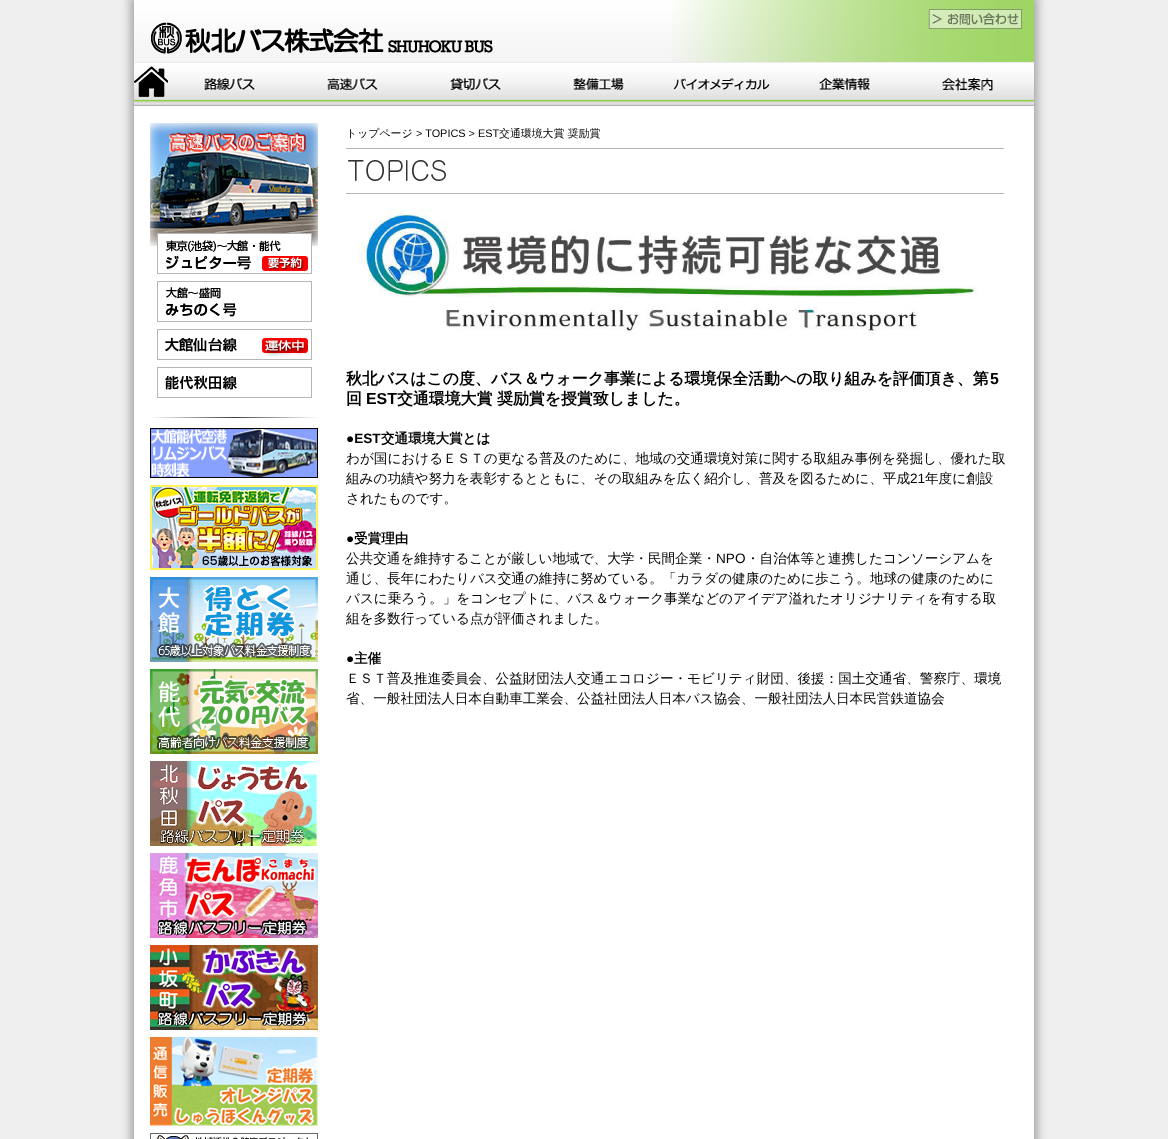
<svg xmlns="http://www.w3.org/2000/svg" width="1168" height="1139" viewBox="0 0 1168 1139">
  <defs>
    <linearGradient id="g1" gradientUnits="userSpaceOnUse" x1="150" y1="418" x2="318" y2="418"><stop offset="0" stop-color="rgb(255,255,255)"/><stop offset="0.5" stop-color="rgb(64,64,64)"/><stop offset="1" stop-color="rgb(255,255,255)"/></linearGradient>
  </defs>
  <rect width="100%" height="100%" fill="rgb(239,239,239)"/>
  <rect x="130" y="-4" width="908" height="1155" fill="rgba(102,102,102,0.5)" filter="blur(4px)"/>
  <rect x="134" y="106" width="900" height="1033" fill="rgb(255,255,255)"/>
  <image x="134" y="0" width="900" height="62" href="pic1.png"/>
  <image x="134" y="62" width="900" height="44" href="pic2.png"/>
  <image x="134" y="66" width="34" height="31" href="pic3.png"/>
  <image x="203" y="78" width="53" height="12" href="pic4.png"/>
  <image x="326" y="78" width="53" height="12" href="pic5.png"/>
  <image x="449" y="78" width="53" height="12" href="pic6.png"/>
  <image x="572" y="78" width="53" height="12" href="pic7.png"/>
  <image x="673" y="78" width="97" height="12" href="pic8.png"/>
  <image x="818" y="78" width="53" height="12" href="pic9.png"/>
  <image x="941" y="78" width="52" height="13" href="pic10.png"/>
  <image x="150" y="123" width="168" height="123" href="pic11.png"/>
  <image x="157" y="233" width="155" height="41" href="pic12.png"/>
  <image x="157" y="281" width="155" height="41" href="pic13.png"/>
  <image x="157" y="329" width="155" height="31" href="pic14.png"/>
  <image x="157" y="367" width="155" height="31" href="pic15.png"/>
  <rect x="150" y="417" width="168" height="1" fill="url(#g1)"/>
  <image x="150" y="428" width="168" height="50" href="pic16.png"/>
  <image x="150" y="485" width="168" height="85" href="pic17.png"/>
  <image x="150" y="577" width="168" height="85" href="pic18.png"/>
  <image x="150" y="669" width="168" height="85" href="pic19.png"/>
  <image x="150" y="761" width="167" height="85" href="pic20.png"/>
  <image x="150" y="853" width="168" height="85" href="pic21.png"/>
  <image x="150" y="945" width="168" height="85" href="pic22.png"/>
  <image x="150" y="1037" width="168" height="89" href="pic23.png"/>
  <image x="150" y="1133" width="168" height="6" href="pic24.png"/>
  <text x="346" y="137" font-family="WenQuanYi Zen Hei" font-size="10.9" font-weight="500" fill="rgb(0,0,0)">トップページ</text>
  <text x="416" y="137" font-family="Liberation Sans" font-size="10.9" fill="rgb(0,0,0)">&gt; TOPICS &gt; EST</text>
  <text x="499" y="137" font-family="WenQuanYi Zen Hei" font-size="10.9" font-weight="500" fill="rgb(0,0,0)">交通環境大賞 奨励賞</text>
  <image x="346" y="148" width="658" height="46" href="pic25.png"/>
  <image x="357" y="209" width="621" height="126" href="pic26.png"/>
  <text x="346" y="384" font-family="WenQuanYi Zen Hei" font-size="15.9" font-weight="bold" fill="rgb(0,0,0)">秋北バスはこの度、バス＆ウォーク事業による環境保全活動への取り組みを評価頂き、第</text>
  <text x="990" y="384" font-family="Liberation Sans" font-size="15.9" font-weight="bold" fill="rgb(0,0,0)">5</text>
  <text x="346" y="404" font-family="WenQuanYi Zen Hei" font-size="15.9" font-weight="bold" fill="rgb(0,0,0)">回</text>
  <text x="366" y="404" font-family="Liberation Sans" font-size="15.9" font-weight="bold" fill="rgb(0,0,0)">EST</text>
  <g font-family="WenQuanYi Zen Hei" font-size="15.9" font-weight="bold" fill="rgb(0,0,0)">
    <text x="397" y="404">交通環境大賞</text>
    <text x="497" y="404">奨励賞を授賞致しました。</text>
  </g>
  <text x="346" y="443" font-family="Liberation Sans" font-size="13.6" font-weight="bold" fill="rgb(0,0,0)">●EST</text>
  <text x="381" y="443" font-family="WenQuanYi Zen Hei" font-size="13.6" font-weight="bold" fill="rgb(0,0,0)">交通環境大賞とは</text>
  <g font-family="WenQuanYi Zen Hei" font-size="13.6" font-weight="500" fill="rgb(0,0,0)">
    <text>
      <tspan x="346" y="463">わが国におけるＥＳＴの更なる普及のために、地域の交通環境対策に関する取組み事例を発掘し、優れた取</tspan>
      <tspan x="346" y="483">組みの功績や努力を表彰するとともに、その取組みを広く紹介し、普及を図るために、平成</tspan>
    </text>
  </g>
  <text x="910" y="483" font-family="Liberation Sans" font-size="13.6" fill="rgb(0,0,0)">21</text>
  <g font-family="WenQuanYi Zen Hei" font-size="13.6" font-weight="500" fill="rgb(0,0,0)">
    <text x="925" y="483">年度に創設</text>
    <text x="346" y="503">されたものです。</text>
  </g>
  <text x="346" y="543" font-family="Liberation Sans" font-size="13.6" font-weight="bold" fill="rgb(0,0,0)">●</text>
  <text x="354" y="543" font-family="WenQuanYi Zen Hei" font-size="13.6" font-weight="bold" fill="rgb(0,0,0)">受賞理由</text>
  <text x="346" y="563" font-family="WenQuanYi Zen Hei" font-size="13.6" font-weight="500" fill="rgb(0,0,0)">公共交通を維持することが厳しい地域で、大学・民間企業・</text>
  <text x="716" y="563" font-family="Liberation Sans" font-size="13.6" fill="rgb(0,0,0)">NPO</text>
  <g font-family="WenQuanYi Zen Hei" font-size="13.6" font-weight="500" fill="rgb(0,0,0)">
    <text x="746" y="563">・自治体等と連携したコンソーシアムを</text>
    <text>
      <tspan x="346" y="583">通じ、長年にわたりバス交通の維持に努めている。「カラダの健康のために歩こう。地球の健康のために</tspan>
      <tspan x="346" y="603">バスに乗ろう。」をコンセプトに、バス＆ウォーク事業などのアイデア溢れたオリジナリティを有する取</tspan>
      <tspan x="346" y="623">組を多数行っている点が評価されました。</tspan>
    </text>
  </g>
  <text x="346" y="663" font-family="Liberation Sans" font-size="13.6" font-weight="bold" fill="rgb(0,0,0)">●</text>
  <text x="354" y="663" font-family="WenQuanYi Zen Hei" font-size="13.6" font-weight="bold" fill="rgb(0,0,0)">主催</text>
  <g font-family="WenQuanYi Zen Hei" font-size="13.6" font-weight="500" fill="rgb(0,0,0)">
    <text>
      <tspan x="346" y="683">ＥＳＴ普及推進委員会、公益財団法人交通エコロジー・モビリティ財団、後援：国土交通省、警察庁、環境</tspan>
      <tspan x="346" y="703">省、一般社団法人日本自動車工業会、公益社団法人日本バス協会、一般社団法人日本民営鉄道協会</tspan>
    </text>
  </g>
</svg>
